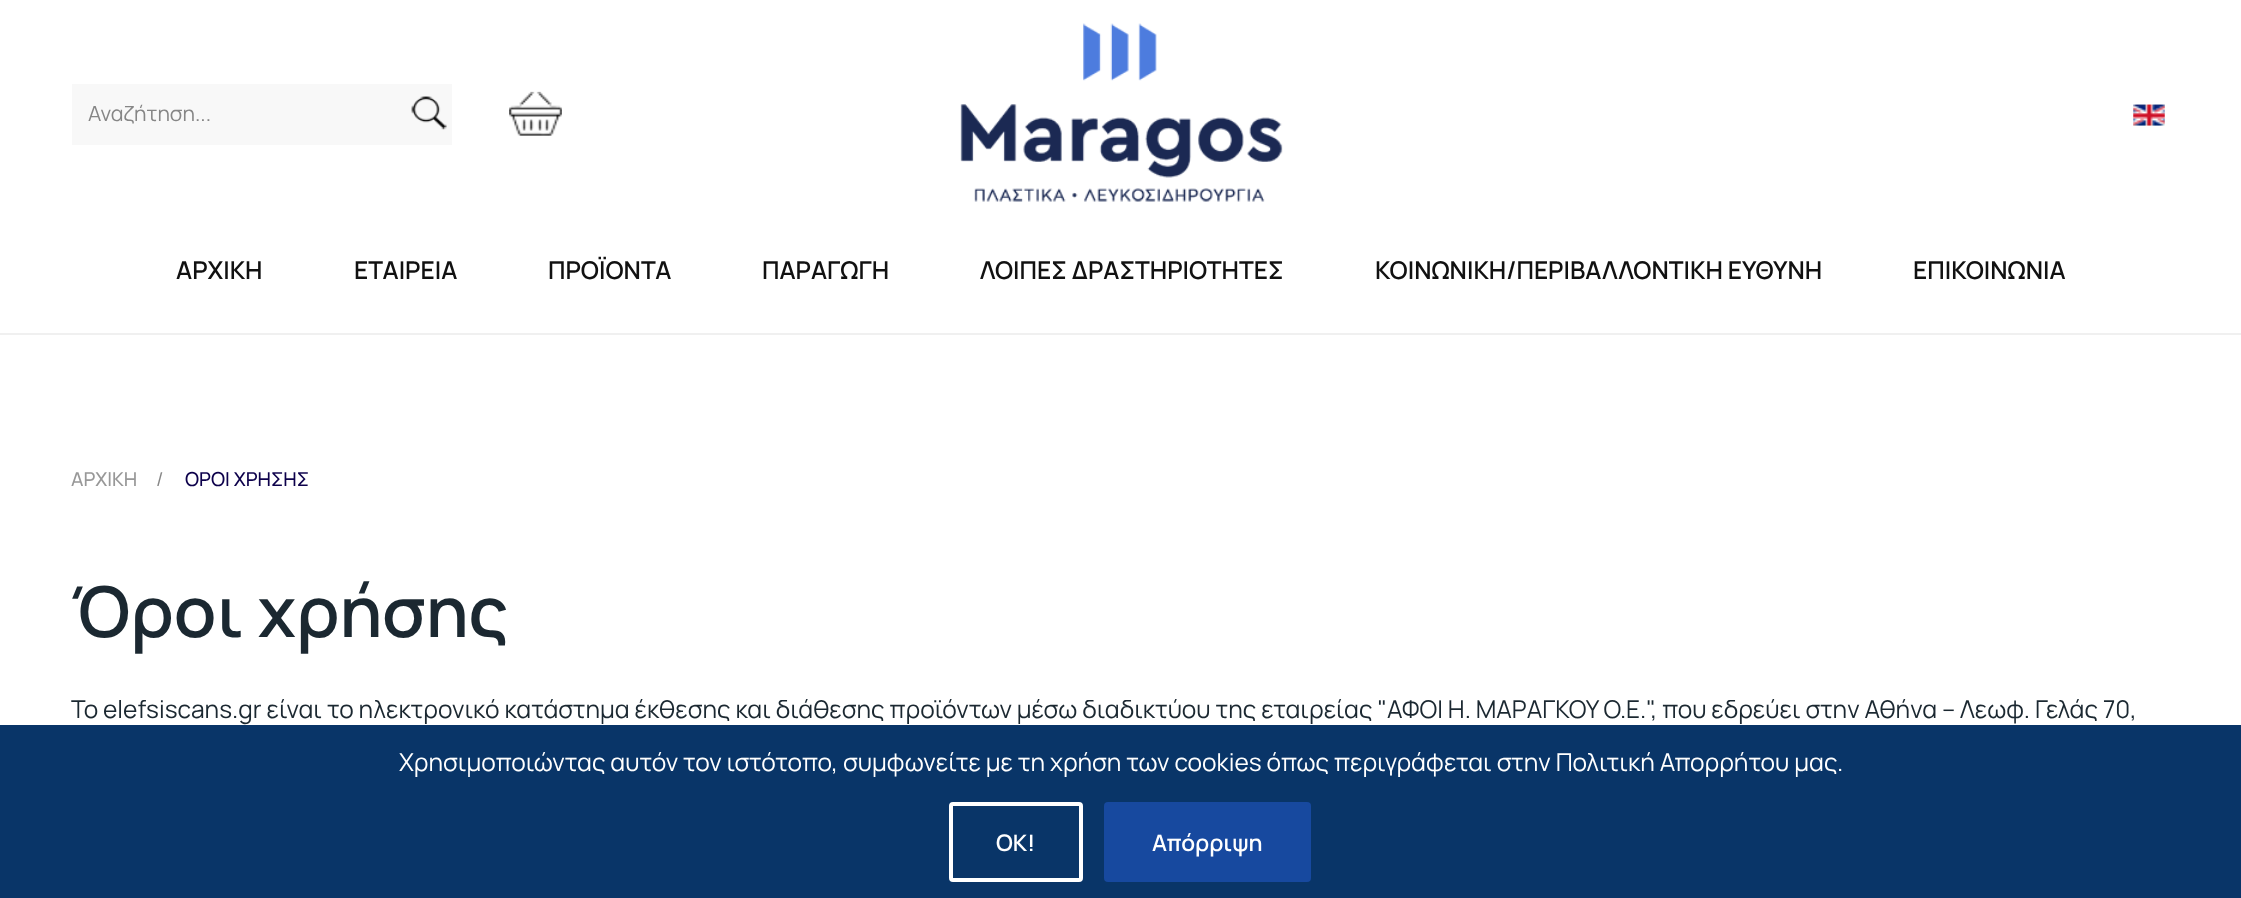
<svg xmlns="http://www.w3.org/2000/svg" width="2241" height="898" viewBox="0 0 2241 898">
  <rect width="100%" height="100%" fill="rgb(255,255,255)"/>
  <rect x="72" y="84" width="380" height="61" fill="rgb(248,248,248)"/>
  <image x="411" y="96" width="36" height="34" href="pic1.png"/>
  <text x="88" y="121" font-family="'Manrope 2'" font-size="21" font-weight="200" fill="rgb(134,134,134)">Αναζήτηση...</text>
  <image x="509" y="91" width="53" height="45" href="pic2.png"/>
  <image x="960" y="23" width="323" height="179" href="pic3.png"/>
  <image x="2133" y="104" width="32" height="22" href="pic4.png"/>
  <rect x="0" y="333" width="2241" height="2" fill="rgb(240,240,240)"/>
  <g font-family="'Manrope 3'" font-size="24.5" font-weight="200" fill="rgb(17,17,17)">
    <text x="176" y="279">ΑΡΧΙΚΗ</text>
    <text x="354" y="279">ΕΤΑΙΡΕΙΑ</text>
    <text x="548" y="279">ΠΡΟΪΟΝΤΑ</text>
    <text x="762" y="279">ΠΑΡΑΓΩΓΗ</text>
    <text x="980" y="279">ΛΟΙΠΕΣ ΔΡΑΣΤΗΡΙΟΤΗΤΕΣ</text>
    <text x="1375" y="279">ΚΟΙΝΩΝΙΚΗ/ΠΕΡΙΒΑΛΛΟΝΤΙΚΗ ΕΥΘΥΝΗ</text>
    <text x="1913" y="279">ΕΠΙΚΟΙΝΩΝΙΑ</text>
  </g>
  <text x="71" y="486" font-family="Manrope" font-size="19.25" font-weight="200" fill="rgb(152,152,152)">ΑΡΧΙΚΗ</text>
  <text x="156" y="486" font-family="'Manrope 2'" font-size="19.25" font-weight="200" fill="rgb(134,134,134)">/</text>
  <text x="185" y="486" font-family="Manrope" font-size="19.25" font-weight="200" fill="rgb(13,1,75)">ΟΡΟΙ ΧΡΗΣΗΣ</text>
  <text x="71" y="637" font-family="'Manrope 3'" font-size="70" font-weight="200" fill="rgb(27,40,49)">Όροι χρήσης</text>
  <text x="71" y="718" font-family="'Manrope 2'" font-size="24.5" font-weight="200" fill="rgb(27,40,49)">Το elefsiscans.gr είναι το ηλεκτρονικό κατάστημα έκθεσης και διάθεσης προϊόντων μέσω διαδικτύου της εταιρείας "ΑΦΟΙ Η. ΜΑΡΑΓΚΟΥ Ο.Ε.", που εδρεύει στην Αθήνα – Λεωφ. Γελάς 70,</text>
  <rect x="0" y="725" width="2241" height="173" fill="rgb(9,53,104)"/>
  <text x="399" y="771" font-family="'Manrope 2'" font-size="24.5" font-weight="200" fill="rgb(255,255,255)">Χρησιμοποιώντας αυτόν τον ιστότοπο, συμφωνείτε με τη χρήση των cookies όπως περιγράφεται στην Πολιτική Απορρήτου μας.</text>
  <rect x="951" y="804" width="130" height="76" rx="2" fill="none" stroke="rgb(255,255,255)" stroke-width="4"/>
  <text x="996" y="851" font-family="'Manrope 3'" font-size="22.75" font-weight="200" fill="rgb(255,255,255)">ΟΚ!</text>
  <rect x="1104" y="802" width="207" height="80" rx="4" fill="rgb(23,73,159)"/>
  <text x="1152" y="851" font-family="'Manrope 3'" font-size="22.75" font-weight="200" fill="rgb(255,255,255)">Απόρριψη</text>
</svg>
